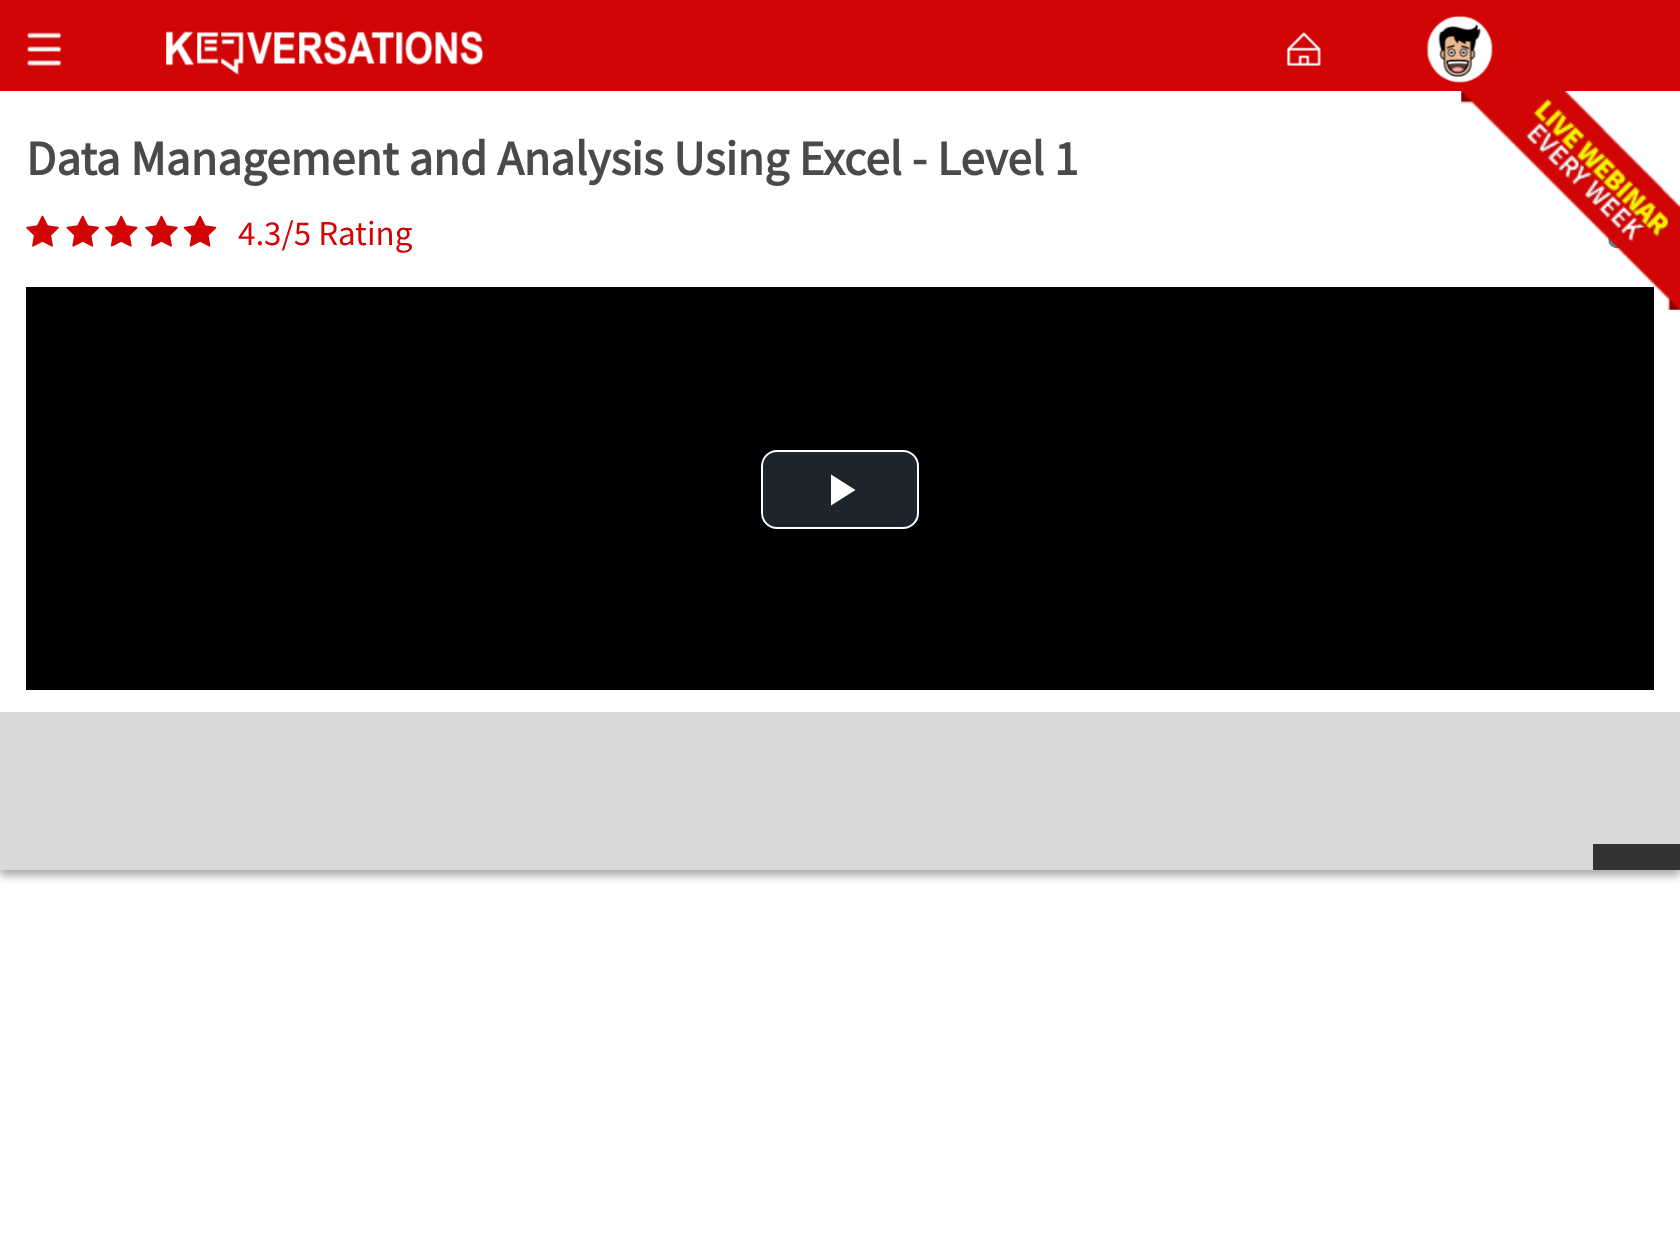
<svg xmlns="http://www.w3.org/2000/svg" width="1680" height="1241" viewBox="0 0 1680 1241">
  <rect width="100%" height="100%" fill="rgb(255,255,255)"/>
  <rect x="0" y="5" width="1680" height="870" fill="rgba(0,0,0,0.23)" filter="blur(5px)"/>
  <rect x="0" y="5" width="1680" height="870" fill="rgba(0,0,0,0.16)" filter="blur(5px)"/>
  <rect x="0" y="91" width="1680" height="621" fill="rgb(255,255,255)"/>
  <rect x="0" y="0" width="1680" height="91" fill="rgb(209,5,5)"/>
  <image x="27" y="32" width="35" height="34" href="pic1.png"/>
  <image x="166" y="31" width="318" height="44" href="pic2.png"/>
  <image x="1286" y="32" width="35" height="34" href="pic3.png"/>
  <image x="1426" y="15" width="67" height="68" href="pic4.png"/>
  <text x="26" y="175" font-family="Source Sans Pro" font-size="49" font-weight="bold" fill="rgb(74,74,74)">Data Management and Analysis Using Excel - Level 1</text>
  <image x="1608" y="235" width="13" height="14" href="pic10.png"/>
  <rect x="26" y="287" width="1628" height="403" fill="rgb(0,0,0)"/>
  <image x="1461" y="91" width="219" height="219" href="pic5.png"/>
  <image x="26" y="215" width="33" height="32" href="pic6.png"/>
  <image x="66" y="215" width="33" height="32" href="pic7.png"/>
  <image x="105" y="215" width="33" height="32" href="pic8.png"/>
  <image x="145" y="215" width="33" height="32" href="pic6.png"/>
  <image x="183" y="215" width="34" height="32" href="pic9.png"/>
  <text x="238" y="245" font-family="Source Sans Pro" font-size="35" fill="rgb(209,5,5)">4.3/5 Rating</text>
  <rect x="762" y="451" width="156" height="77" rx="15" fill="rgb(30,36,44)" stroke="rgb(255,255,255)" stroke-width="2"/>
  <path d="M831 474.5V505.5L855.5 490Z" fill="rgb(255,255,255)"/>
  <rect x="0" y="712" width="1680" height="158" fill="rgb(218,218,218)"/>
  <rect x="1593" y="844" width="87" height="26" fill="rgb(51,51,51)"/>
</svg>
